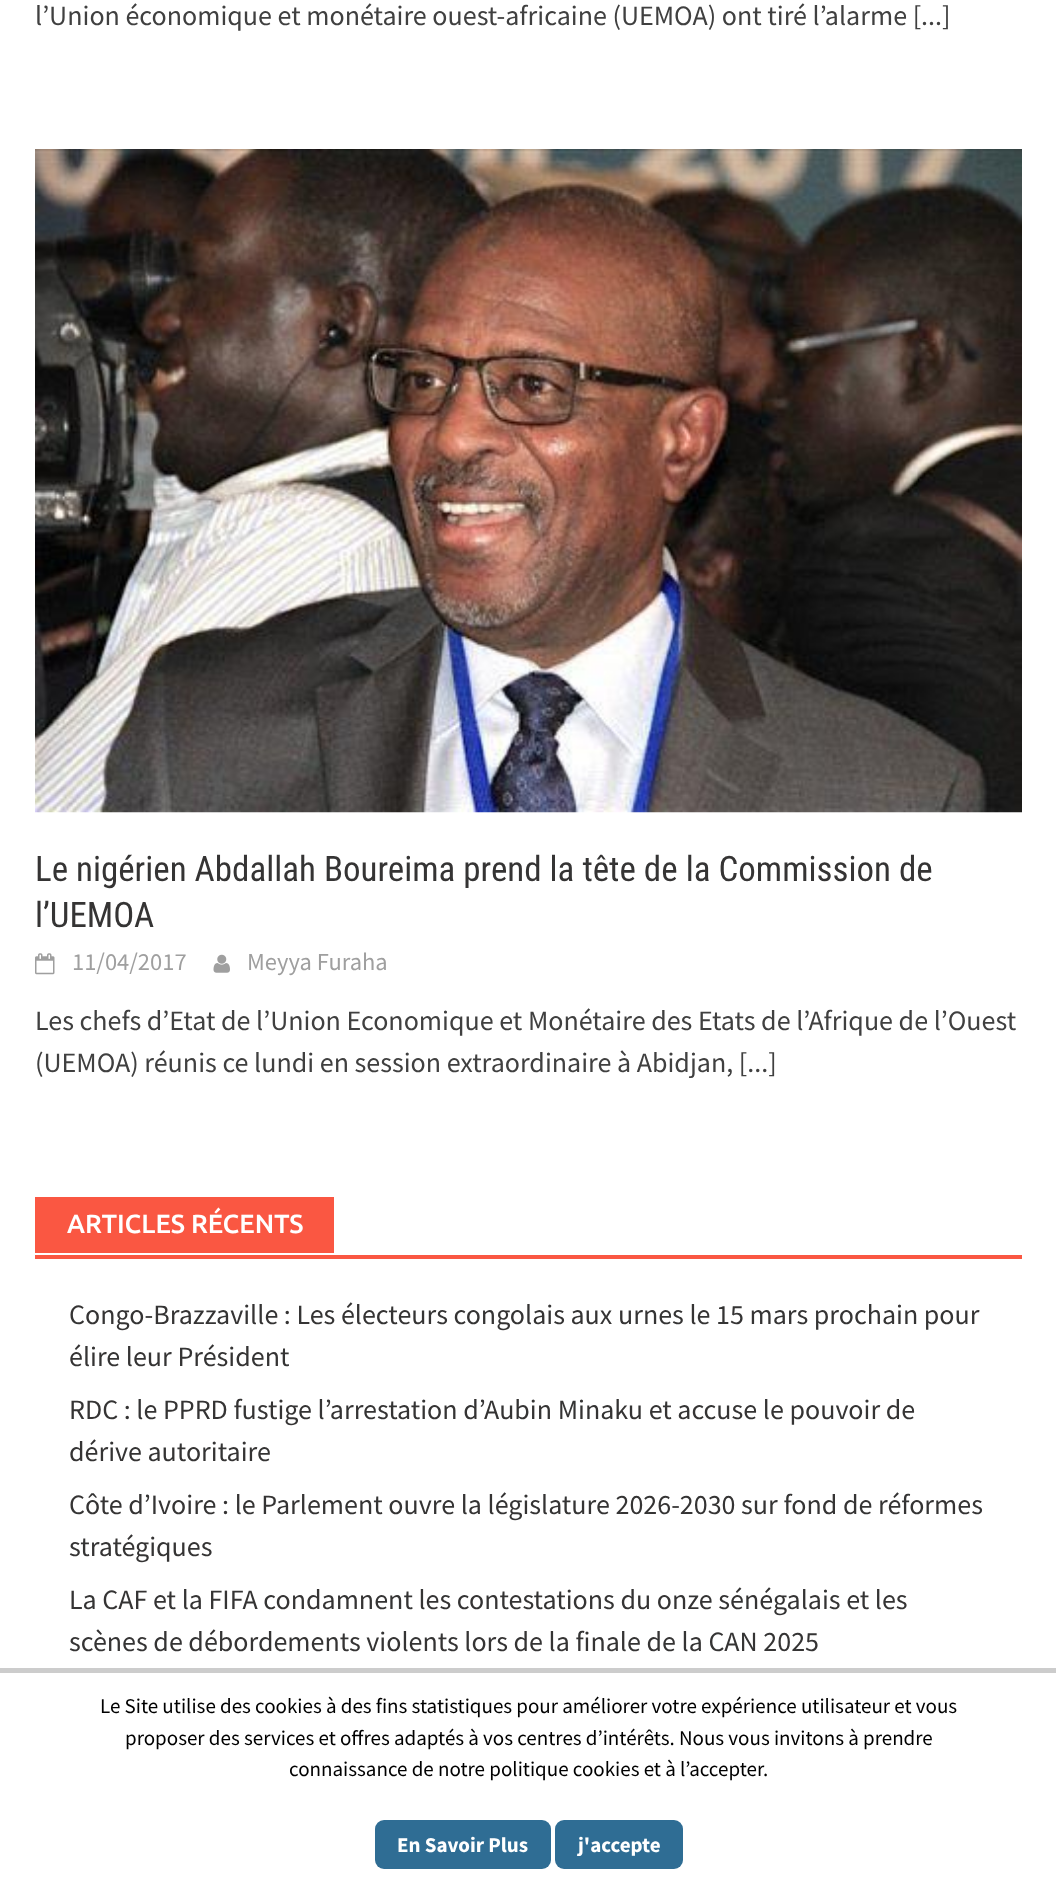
<svg xmlns="http://www.w3.org/2000/svg" width="1056" height="1904" viewBox="0 0 1056 1904">
  <rect width="100%" height="100%" fill="rgb(255,255,255)"/>
  <text x="35" y="25" font-family="Source Sans Pro" font-size="28" fill="rgb(64,64,64)">l’Union économique et monétaire ouest-africaine (UEMOA) ont tiré l’alarme [...]</text>
  <image x="35" y="149" width="987" height="664" href="pic1.png"/>
  <g font-family="Roboto Condensed" font-size="35" fill="rgb(53,52,52)">
    <text>
      <tspan x="35" y="881">Le nigérien Abdallah Boureima prend la tête de la Commission de</tspan>
      <tspan x="35" y="927">l’UEMOA</tspan>
    </text>
  </g>
  <image x="35" y="953" width="20" height="22" href="pic2.png"/>
  <text x="72" y="970" font-family="Source Sans Pro" font-size="24.5" fill="rgb(159,159,159)">11/04/2017</text>
  <image x="213" y="954" width="17" height="19" href="pic3.png"/>
  <text x="247" y="970" font-family="Source Sans Pro" font-size="24.5" fill="rgb(159,159,159)">Meyya Furaha</text>
  <g font-family="Source Sans Pro" font-size="28" fill="rgb(64,64,64)">
    <text>
      <tspan x="35" y="1030">Les chefs d’Etat de l’Union Economique et Monétaire des Etats de l’Afrique de l’Ouest</tspan>
      <tspan x="35" y="1072">(UEMOA) réunis ce lundi en session extraordinaire à Abidjan, [...]</tspan>
    </text>
  </g>
  <rect x="35" y="1255" width="987" height="4" fill="rgb(250,87,66)"/>
  <rect x="35" y="1197" width="299" height="56" fill="rgb(250,87,66)"/>
  <text x="67" y="1233" font-family="Ubuntu" font-size="26.25" font-weight="500" fill="rgb(255,255,255)">ARTICLES RÉCENTS</text>
  <g font-family="Source Sans Pro" font-size="28" fill="rgb(53,52,52)">
    <text>
      <tspan x="69" y="1324">Congo-Brazzaville : Les électeurs congolais aux urnes le 15 mars prochain pour</tspan>
      <tspan x="69" y="1366">élire leur Président</tspan>
      <tspan x="69" y="1419">RDC : le PPRD fustige l’arrestation d’Aubin Minaku et accuse le pouvoir de</tspan>
      <tspan x="69" y="1461">dérive autoritaire</tspan>
      <tspan x="69" y="1514">Côte d’Ivoire : le Parlement ouvre la législature 2026-2030 sur fond de réformes</tspan>
      <tspan x="69" y="1556">stratégiques</tspan>
      <tspan x="69" y="1609">La CAF et la FIFA condamnent les contestations du onze sénégalais et les</tspan>
      <tspan x="69" y="1651">scènes de débordements violents lors de la finale de la CAN 2025</tspan>
    </text>
  </g>
  <rect x="0" y="1668" width="1056" height="5" fill="rgb(204,204,204)"/>
  <g font-family="Source Sans Pro" font-size="21" fill="rgb(0,0,0)">
    <text x="100" y="1713">Le Site utilise des cookies à des fins statistiques pour améliorer votre expérience utilisateur et vous</text>
    <text x="125" y="1745">proposer des services et offres adaptés à vos centres d’intérêts. Nous vous invitons à prendre</text>
    <text x="289" y="1776">connaissance de notre politique cookies et à l’accepter.</text>
  </g>
  <rect x="375" y="1820" width="176" height="49" rx="9" fill="rgb(47,109,148)"/>
  <text x="397" y="1852" font-family="Source Sans Pro" font-size="21" font-weight="bold" fill="rgb(255,255,255)">En Savoir Plus</text>
  <rect x="555" y="1820" width="128" height="49" rx="9" fill="rgb(47,109,148)"/>
  <text x="578" y="1852" font-family="Source Sans Pro" font-size="21" font-weight="bold" fill="rgb(255,255,255)">j'accepte</text>
</svg>
